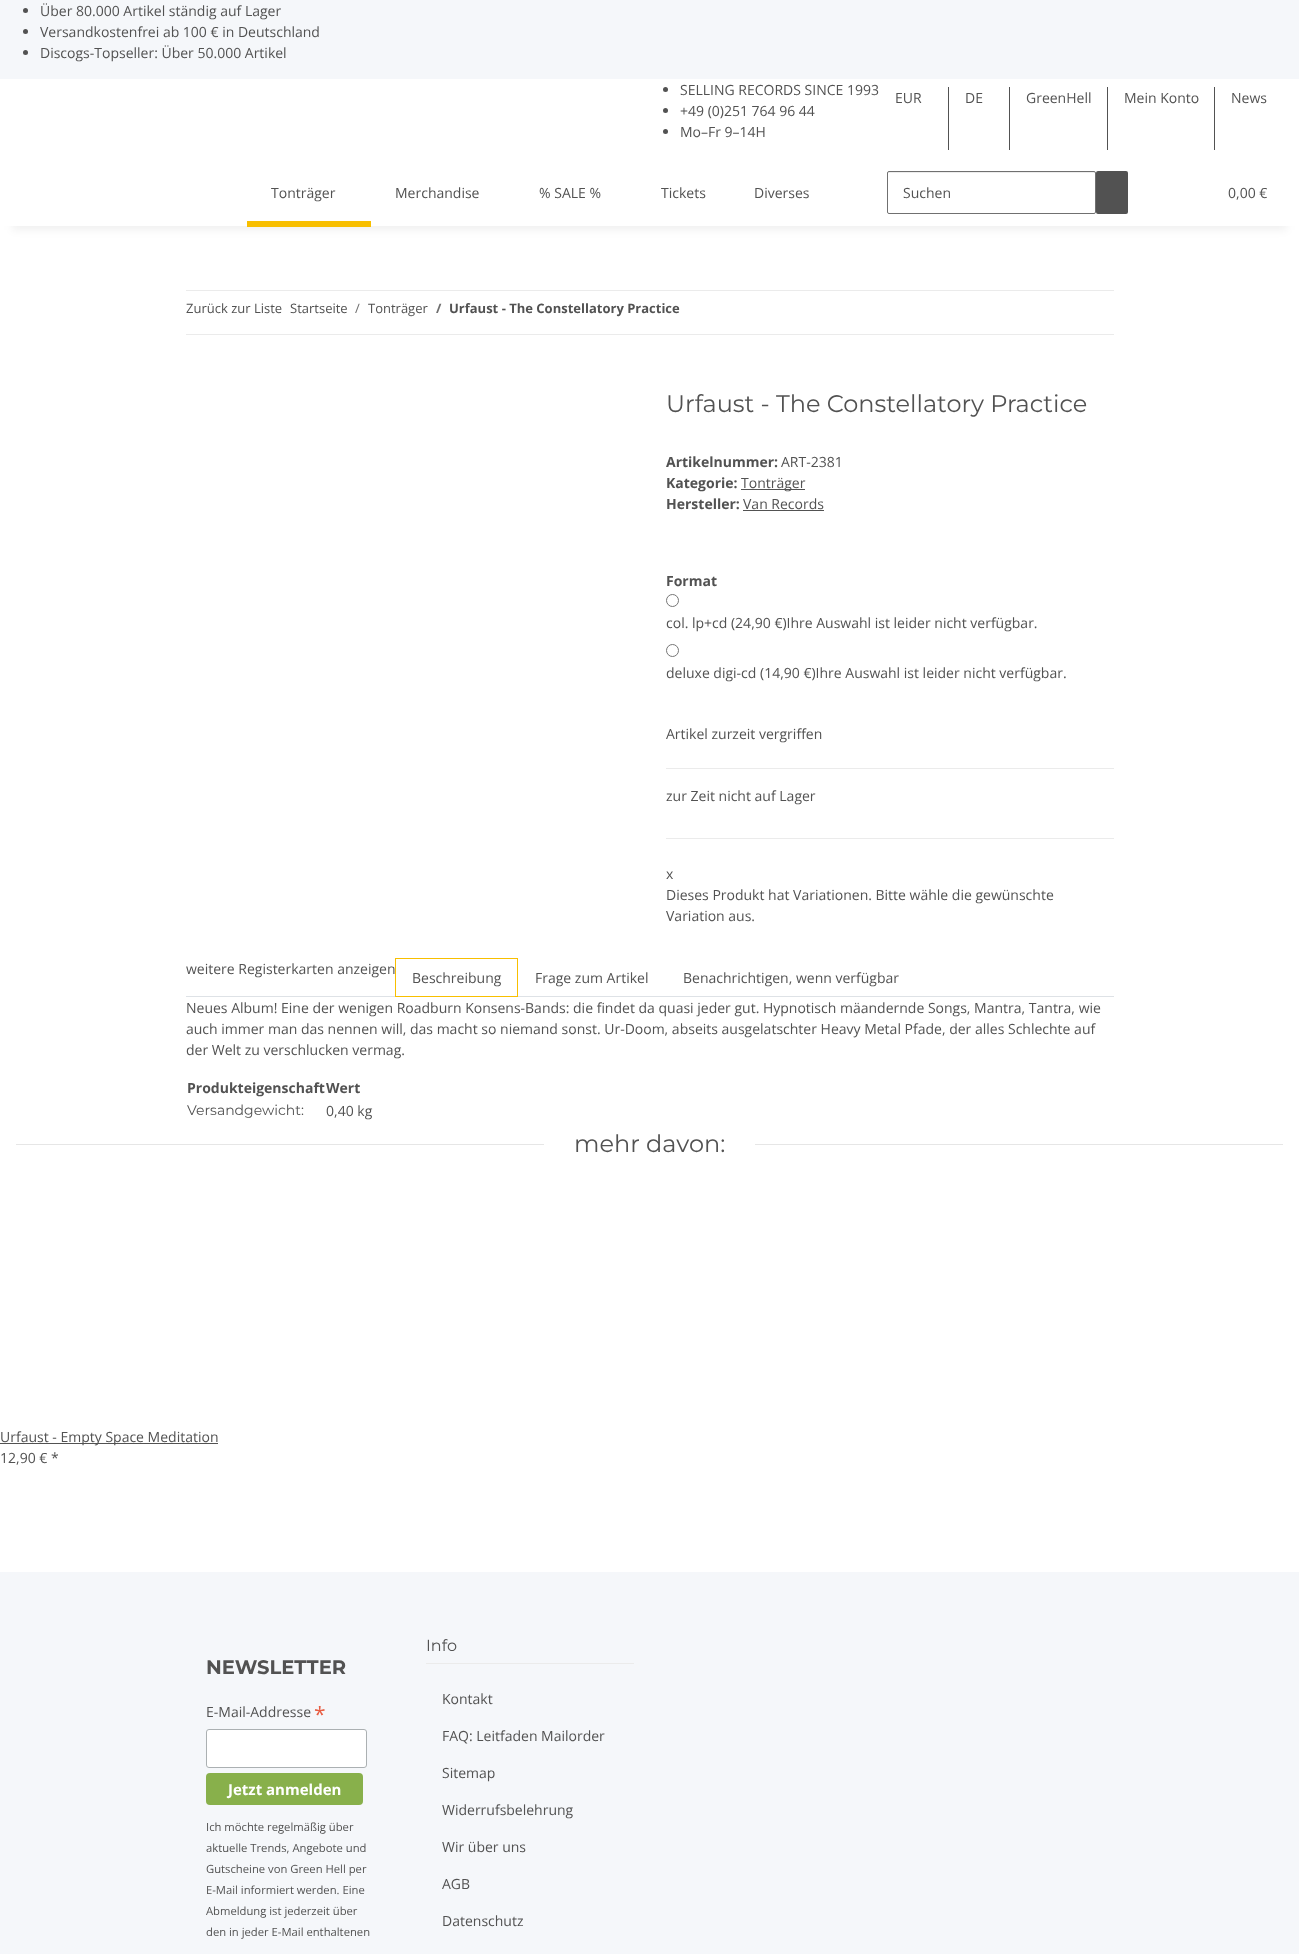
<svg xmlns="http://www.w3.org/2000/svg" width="1299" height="1954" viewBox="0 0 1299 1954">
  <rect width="100%" height="100%" fill="rgb(245,247,250)"/>
  <circle cx="25.5" cy="10.5" r="2.5" fill="rgb(82,82,82)"/>
  <text x="40" y="16" font-family="Open Sans" font-size="14" fill="rgb(82,82,82)">Über 80.000 Artikel ständig auf Lager</text>
  <circle cx="25.5" cy="31.5" r="2.5" fill="rgb(82,82,82)"/>
  <text x="40" y="37" font-family="Open Sans" font-size="14" fill="rgb(82,82,82)">Versandkostenfrei ab 100 € in Deutschland</text>
  <circle cx="25.5" cy="52.5" r="2.5" fill="rgb(82,82,82)"/>
  <text x="40" y="58" font-family="Open Sans" font-size="14" fill="rgb(82,82,82)">Discogs-Topseller: Über 50.000 Artikel</text>
  <rect x="0" y="226" width="1299" height="1346" fill="rgb(255,255,255)"/>
  <rect x="12" y="186" width="1275" height="44" fill="rgba(0,0,0,0.06)" filter="blur(4.5px)"/>
  <rect x="0" y="79" width="1299" height="147" fill="rgb(255,255,255)"/>
  <circle cx="665.5" cy="89.5" r="2.5" fill="rgb(82,82,82)"/>
  <text x="680" y="95" font-family="Open Sans" font-size="14" fill="rgb(82,82,82)">SELLING RECORDS SINCE 1993</text>
  <circle cx="665.5" cy="110.5" r="2.5" fill="rgb(82,82,82)"/>
  <text x="680" y="116" font-family="Open Sans" font-size="14" fill="rgb(82,82,82)">+49 (0)251 764 96 44</text>
  <circle cx="665.5" cy="131.5" r="2.5" fill="rgb(82,82,82)"/>
  <g font-family="Open Sans" font-size="14" fill="rgb(82,82,82)">
    <text x="680" y="137">Mo–Fr 9–14H</text>
    <text x="895" y="103">EUR</text>
  </g>
  <rect x="948" y="87" width="1" height="63" fill="rgb(82,82,82)"/>
  <text x="965" y="103" font-family="Open Sans" font-size="14" fill="rgb(82,82,82)">DE</text>
  <rect x="1009" y="87" width="1" height="63" fill="rgb(82,82,82)"/>
  <text x="1026" y="103" font-family="Open Sans" font-size="14" fill="rgb(82,82,82)">GreenHell</text>
  <rect x="1107" y="87" width="1" height="63" fill="rgb(82,82,82)"/>
  <text x="1124" y="103" font-family="Open Sans" font-size="14" fill="rgb(82,82,82)">Mein Konto</text>
  <rect x="1214" y="87" width="1" height="63" fill="rgb(82,82,82)"/>
  <g font-family="Open Sans" font-size="14" fill="rgb(82,82,82)">
    <text x="1231" y="103">News</text>
    <text x="271" y="198">Tonträger</text>
  </g>
  <rect x="247" y="221" width="124" height="6" fill="rgb(248,191,0)"/>
  <g font-family="Open Sans" font-size="14" fill="rgb(82,82,82)">
    <text x="395" y="198">Merchandise</text>
    <text x="539" y="198">% SALE %</text>
    <text x="661" y="198">Tickets</text>
    <text x="754" y="198">Diverses</text>
  </g>
  <path d="M889 173H1095V174V172H1094H889C888 172 888 173 888 174C888 173 888 173 889 173Z" fill="rgb(236,236,236)"/>
  <rect x="887.5" y="171.5" width="208" height="42" rx="1.5" fill="none" stroke="rgb(112,112,112)"/>
  <text x="903" y="198" font-family="Open Sans" font-size="14" fill="rgb(82,82,82)">Suchen</text>
  <rect x="1096" y="171" width="32" height="43" rx="2" fill="rgb(82,82,82)"/>
  <text x="1228" y="198" font-family="Open Sans" font-size="14" fill="rgb(82,82,82)">0,00 €</text>
  <rect x="186" y="290" width="928" height="1" fill="rgb(235,235,235)"/>
  <rect x="186" y="334" width="928" height="1" fill="rgb(235,235,235)"/>
  <g font-family="Open Sans" font-size="13" fill="rgb(82,82,82)">
    <text x="186" y="313">Zurück zur Liste</text>
    <text x="290" y="313">Startseite</text>
  </g>
  <text x="355" y="313" font-family="Open Sans" font-size="13" fill="rgb(112,112,112)">/</text>
  <text x="368" y="313" font-family="Open Sans" font-size="13" fill="rgb(82,82,82)">Tonträger</text>
  <text x="436" y="313" font-family="Open Sans" font-size="13" font-weight="bold" fill="rgb(112,112,112)">/</text>
  <text x="449" y="313" font-family="Open Sans" font-size="13" font-weight="bold" fill="rgb(82,82,82)">Urfaust - The Constellatory Practice</text>
  <text x="666" y="412" font-family="Montserrat" font-size="24" fill="rgb(82,82,82)">Urfaust - The Constellatory Practice</text>
  <text x="666" y="467" font-family="Open Sans" font-size="14" font-weight="bold" fill="rgb(82,82,82)">Artikelnummer:</text>
  <text x="781" y="467" font-family="Open Sans" font-size="14" fill="rgb(82,82,82)">ART-2381</text>
  <text x="666" y="488" font-family="Open Sans" font-size="14" font-weight="bold" fill="rgb(82,82,82)">Kategorie:</text>
  <rect x="741" y="489" width="64" height="1" fill="rgb(82,82,82)"/>
  <text x="741" y="488" font-family="Open Sans" font-size="14" fill="rgb(82,82,82)">Tonträger</text>
  <text x="666" y="509" font-family="Open Sans" font-size="14" font-weight="bold" fill="rgb(82,82,82)">Hersteller:</text>
  <text x="743" y="509" font-family="Open Sans" font-size="14" fill="rgb(82,82,82)">Van Records</text>
  <rect x="743" y="510" width="81" height="1" fill="rgb(82,82,82)"/>
  <text x="666" y="586" font-family="Open Sans" font-size="14" font-weight="bold" fill="rgb(82,82,82)">Format</text>
  <circle cx="672.5" cy="600.5" r="6" fill="none" stroke="rgb(118,118,118)"/>
  <text x="666" y="628" font-family="Open Sans" font-size="14" fill="rgb(82,82,82)">col. lp+cd (24,90 €)Ihre Auswahl ist leider nicht verfügbar.</text>
  <circle cx="672.5" cy="650.5" r="6" fill="none" stroke="rgb(118,118,118)"/>
  <g font-family="Open Sans" font-size="14" fill="rgb(82,82,82)">
    <text x="666" y="678">deluxe digi-cd (14,90 €)Ihre Auswahl ist leider nicht verfügbar.</text>
    <text x="666" y="739">Artikel zurzeit vergriffen</text>
  </g>
  <rect x="666" y="768" width="448" height="1" fill="rgb(235,235,235)"/>
  <rect x="666" y="838" width="448" height="1" fill="rgb(235,235,235)"/>
  <g font-family="Open Sans" font-size="14" fill="rgb(82,82,82)">
    <text x="666" y="801">zur Zeit nicht auf Lager</text>
    <text>
      <tspan x="666" y="879">x</tspan>
      <tspan x="666" y="900">Dieses Produkt hat Variationen. Bitte wähle die gewünschte</tspan>
      <tspan x="666" y="921">Variation aus.</tspan>
    </text>
  </g>
  <rect x="186" y="996" width="928" height="1" fill="rgb(222,226,230)"/>
  <text x="186" y="974" font-family="Open Sans" font-size="14" fill="rgb(82,82,82)">weitere Registerkarten anzeigen</text>
  <rect x="395.5" y="958.5" width="122" height="38" fill="none" stroke="rgb(248,191,0)"/>
  <g font-family="Open Sans" font-size="14" fill="rgb(82,82,82)">
    <text x="412" y="983">Beschreibung</text>
    <text x="535" y="983">Frage zum Artikel</text>
    <text x="683" y="983">Benachrichtigen, wenn verfügbar</text>
    <text>
      <tspan x="186" y="1013">Neues Album! Eine der wenigen Roadburn Konsens-Bands: die findet da quasi jeder gut. Hypnotisch mäandernde Songs, Mantra, Tantra, wie</tspan>
      <tspan x="186" y="1034">auch immer man das nennen will, das macht so niemand sonst. Ur-Doom, abseits ausgelatschter Heavy Metal Pfade, der alles Schlechte auf</tspan>
      <tspan x="186" y="1055">der Welt zu verschlucken vermag.</tspan>
    </text>
  </g>
  <g font-family="Open Sans" font-size="14" font-weight="bold" fill="rgb(82,82,82)">
    <text x="187" y="1093">Produkteigenschaft</text>
    <text x="326" y="1093">Wert</text>
  </g>
  <text x="187" y="1115" font-family="Montserrat" font-size="14" fill="rgb(82,82,82)">Versandgewicht:</text>
  <text x="326" y="1116" font-family="Open Sans" font-size="14" fill="rgb(82,82,82)">0,40 kg</text>
  <rect x="16" y="1144" width="528" height="1" fill="rgb(230,230,230)"/>
  <text x="574" y="1152" font-family="Montserrat" font-size="24" fill="rgb(82,82,82)">mehr davon:</text>
  <rect x="755" y="1144" width="528" height="1" fill="rgb(230,230,230)"/>
  <rect x="0" y="1443" width="218" height="1" fill="rgb(82,82,82)"/>
  <g font-family="Open Sans" font-size="14" fill="rgb(82,82,82)">
    <text>
      <tspan x="0" y="1442">Urfaust - Empty Space Meditation</tspan>
      <tspan x="0" y="1463">12,90 € *</tspan>
    </text>
  </g>
  <text x="206" y="1674" font-family="Montserrat" font-size="19.5" font-weight="bold" fill="rgb(82,82,82)">NEWSLETTER</text>
  <text x="206" y="1717" font-family="Open Sans" font-size="14" fill="rgb(82,82,82)">E-Mail-Addresse</text>
  <text x="314" y="1722" font-family="Open Sans" font-size="21" fill="rgb(232,92,65)">*</text>
  <rect x="206.5" y="1729.5" width="160" height="38" rx="2.5" fill="rgb(255,255,255)" stroke="rgb(171,176,178)"/>
  <rect x="206" y="1773" width="157" height="32" rx="4" fill="rgb(136,176,75)"/>
  <text x="228" y="1795" font-family="Open Sans" font-size="15" font-weight="bold" fill="rgb(255,255,255)">Jetzt anmelden</text>
  <g font-family="Open Sans" font-size="11.25" fill="rgb(82,82,82)">
    <text>
      <tspan x="206" y="1831">Ich möchte regelmäßig über</tspan>
      <tspan x="206" y="1852">aktuelle Trends, Angebote und</tspan>
      <tspan x="206" y="1873">Gutscheine von Green Hell per</tspan>
      <tspan x="206" y="1894">E-Mail informiert werden. Eine</tspan>
      <tspan x="206" y="1915">Abmeldung ist jederzeit über</tspan>
      <tspan x="206" y="1936">den in jeder E-Mail enthaltenen</tspan>
    </text>
  </g>
  <rect x="426" y="1663" width="208" height="1" fill="rgb(235,235,235)"/>
  <text x="426" y="1651" font-family="Montserrat" font-size="16" fill="rgb(82,82,82)">Info</text>
  <g font-family="Open Sans" font-size="14" fill="rgb(82,82,82)">
    <text x="442" y="1704">Kontakt</text>
    <text x="442" y="1741">FAQ: Leitfaden Mailorder</text>
    <text x="442" y="1778">Sitemap</text>
    <text x="442" y="1815">Widerrufsbelehrung</text>
    <text x="442" y="1852">Wir über uns</text>
    <text x="442" y="1889">AGB</text>
    <text x="442" y="1926">Datenschutz</text>
  </g>
</svg>
